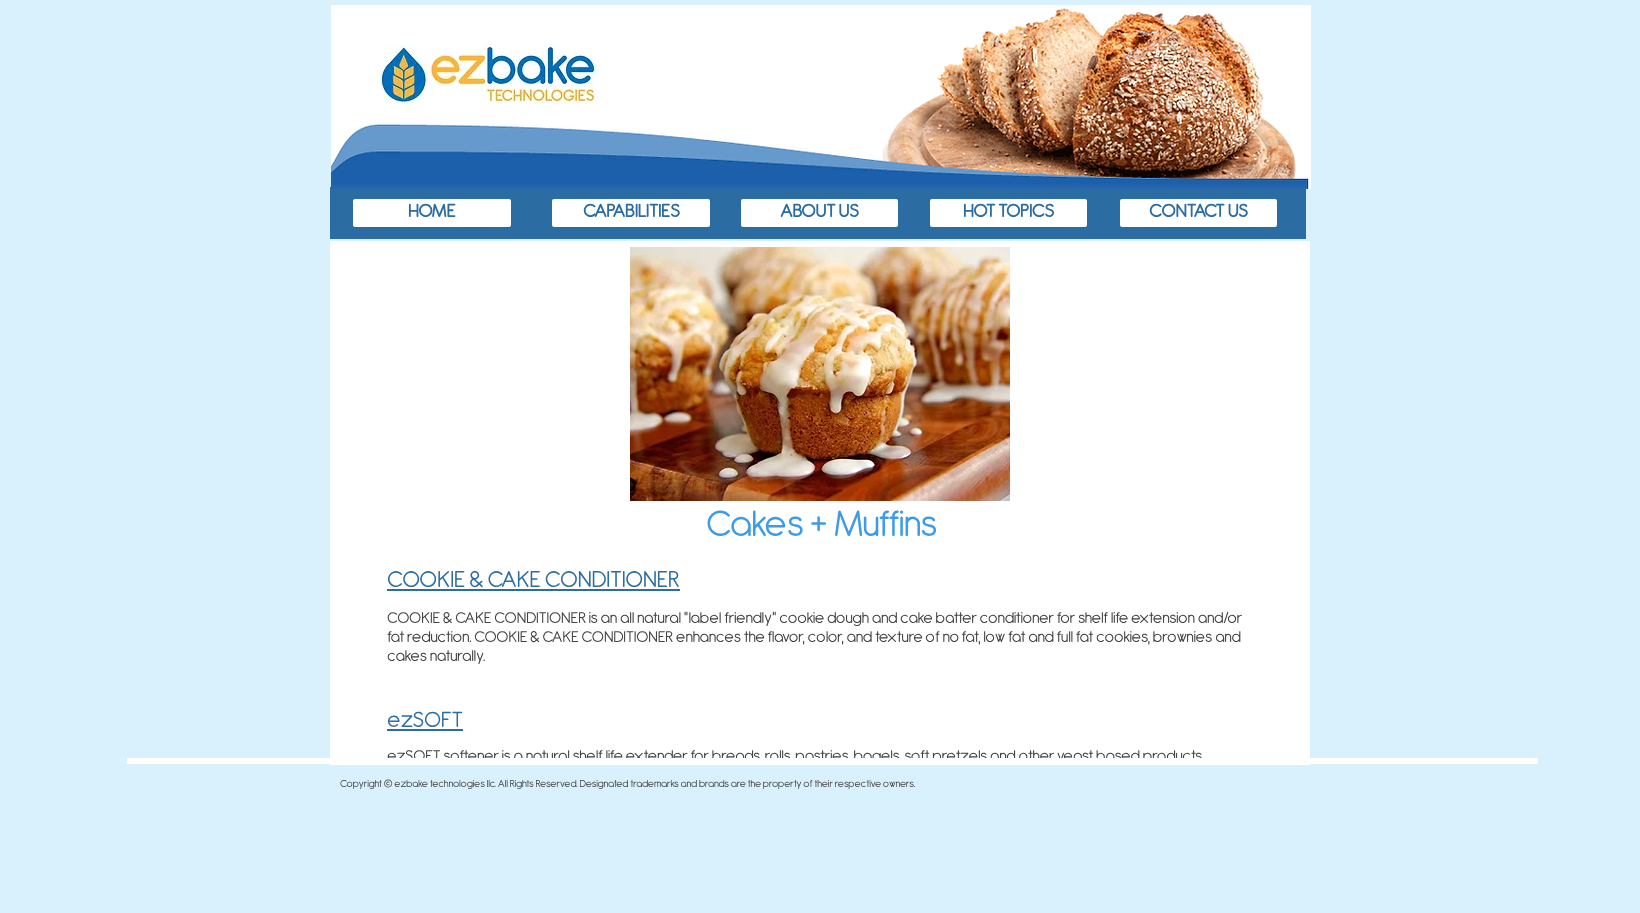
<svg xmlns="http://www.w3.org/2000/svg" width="1640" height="913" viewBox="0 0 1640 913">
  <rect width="100%" height="100%" fill="rgb(217,240,253)"/>
  <rect x="330" y="187" width="976" height="52" fill="rgb(43,108,163)"/>
  <image x="331" y="5" width="980" height="184" href="pic1.png"/>
  <image x="377" y="44" width="224" height="60" href="pic2.png"/>
  <rect x="351.5" y="197.5" width="161" height="31" rx="3.5" fill="rgb(255,255,255)" stroke="rgb(43,108,163)" stroke-width="3"/>
  <text x="408" y="217" font-family="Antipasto" font-size="20" font-weight="bold" fill="rgb(43,108,163)">HOME</text>
  <rect x="550.5" y="197.5" width="161" height="31" rx="3.5" fill="rgb(255,255,255)" stroke="rgb(43,108,163)" stroke-width="3"/>
  <text x="583" y="217" font-family="Antipasto" font-size="20" font-weight="bold" fill="rgb(43,108,163)">CAPABILITIES</text>
  <rect x="739.5" y="197.5" width="160" height="31" rx="3.5" fill="rgb(255,255,255)" stroke="rgb(43,108,163)" stroke-width="3"/>
  <text x="780" y="217" font-family="Antipasto" font-size="20" font-weight="bold" fill="rgb(43,108,163)">ABOUT US</text>
  <rect x="928.5" y="197.5" width="160" height="31" rx="3.5" fill="rgb(255,255,255)" stroke="rgb(43,108,163)" stroke-width="3"/>
  <text x="963" y="217" font-family="Antipasto" font-size="20" font-weight="bold" fill="rgb(43,108,163)">HOT TOPICS</text>
  <rect x="1118.5" y="197.5" width="160" height="31" rx="3.5" fill="rgb(255,255,255)" stroke="rgb(43,108,163)" stroke-width="3"/>
  <text x="1149" y="217" font-family="Antipasto" font-size="20" font-weight="bold" fill="rgb(43,108,163)">CONTACT US</text>
  <rect x="330" y="241" width="980" height="524" fill="rgb(255,255,255)"/>
  <image x="630" y="247" width="380" height="254" href="pic3.png"/>
  <text x="706" y="536" font-family="Antipasto" font-size="40" fill="rgb(61,155,232)">Cakes + Muffins</text>
  <text x="387" y="587" font-family="Antipasto" font-size="25" fill="rgb(43,108,163)">COOKIE &amp; CAKE CONDITIONER</text>
  <rect x="387" y="589" width="293" height="2" fill="rgb(43,108,163)"/>
  <g font-family="Antipasto" font-size="17" fill="rgb(65,65,65)">
    <text>
      <tspan x="387" y="623">COOKIE &amp; CAKE CONDITIONER is an all natural "label friendly" cookie dough and cake batter conditioner for shelf life extension and/or</tspan>
      <tspan x="387" y="642">fat reduction. COOKIE &amp; CAKE CONDITIONER enhances the flavor, color, and texture of no fat, low fat and full fat cookies, brownies and</tspan>
      <tspan x="387" y="661">cakes naturally.</tspan>
    </text>
  </g>
  <text x="387" y="727" font-family="Antipasto" font-size="24" fill="rgb(43,108,163)">ezSOFT</text>
  <rect x="387" y="729" width="76" height="2" fill="rgb(43,108,163)"/>
  <text x="387" y="761" font-family="Antipasto" font-size="17" fill="rgb(65,65,65)">ezSOFT softener is a natural shelf life extender for breads, rolls, pastries, bagels, soft pretzels and other yeast based products</text>
  <rect x="127" y="758" width="1411" height="6" fill="rgb(255,255,255)"/>
  <text x="340" y="787" font-family="Antipasto" font-size="11" fill="rgb(65,65,65)">Copyright © ezbake technologies llc. All Rights Reserved. Designated trademarks and brands are the property of their respective owners.</text>
</svg>
